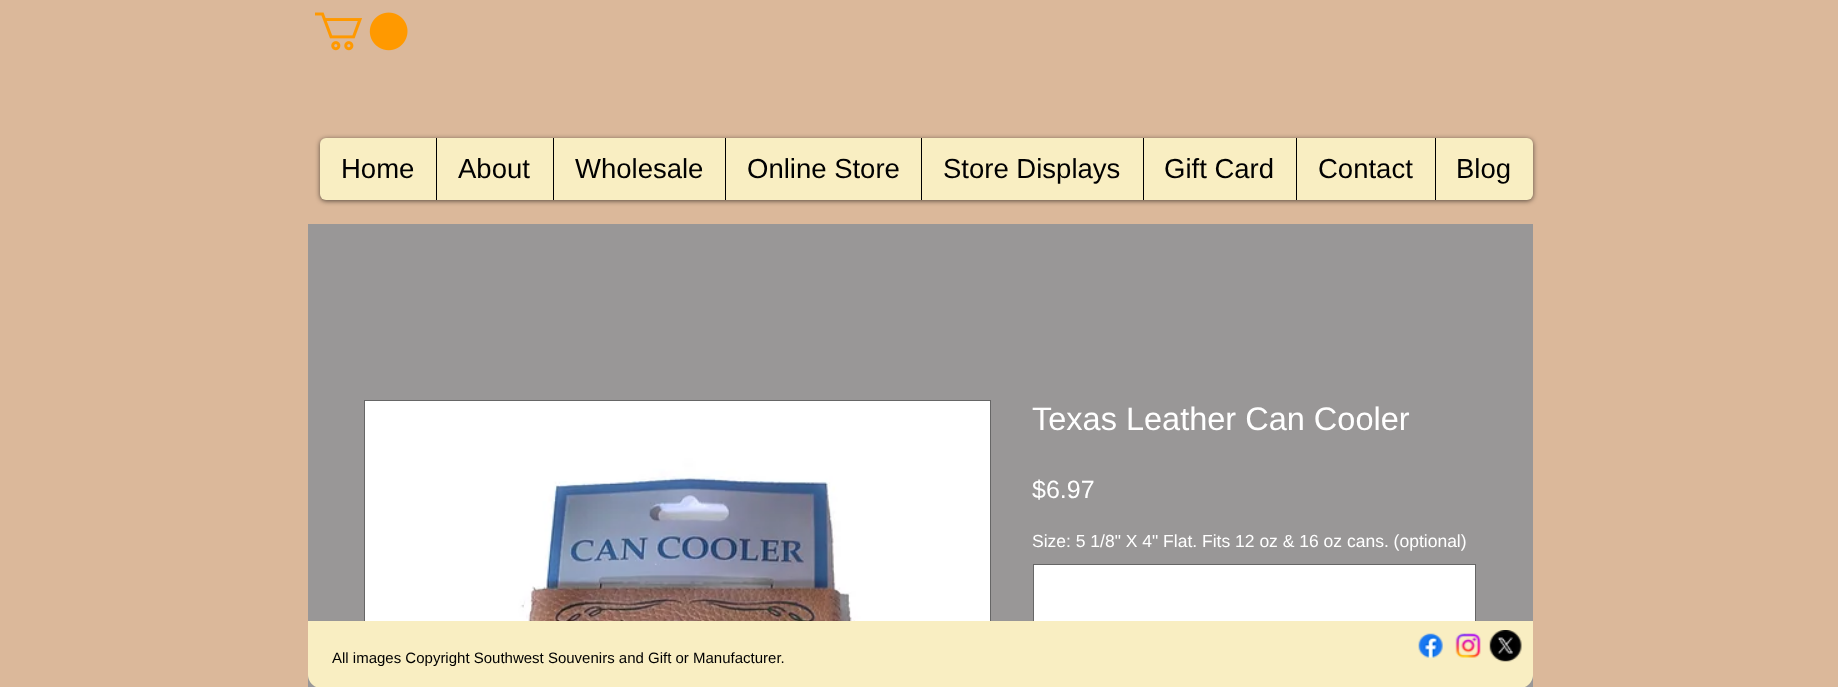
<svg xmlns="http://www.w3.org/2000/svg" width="1838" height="687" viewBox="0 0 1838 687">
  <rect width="100%" height="100%" fill="rgb(219,184,154)"/>
  <image x="315" y="12" width="93" height="39" href="pic1.png"/>
  <rect x="320" y="139" width="1213" height="62" rx="6" fill="rgba(0,0,0,0.6)" filter="blur(2.5px)"/>
  <rect x="320" y="138" width="1213" height="62" rx="6" fill="rgb(249,238,194)"/>
  <text x="341" y="178" font-family="Liberation Sans" font-size="27.5" fill="rgb(0,0,0)">Home</text>
  <rect x="436" y="138" width="1" height="62" fill="rgb(0,0,0)"/>
  <text x="458" y="178" font-family="Liberation Sans" font-size="27.5" fill="rgb(0,0,0)">About</text>
  <rect x="553" y="138" width="1" height="62" fill="rgb(0,0,0)"/>
  <text x="575" y="178" font-family="Liberation Sans" font-size="27.5" fill="rgb(0,0,0)">Wholesale</text>
  <rect x="725" y="138" width="1" height="62" fill="rgb(0,0,0)"/>
  <text x="747" y="178" font-family="Liberation Sans" font-size="27.5" fill="rgb(0,0,0)">Online Store</text>
  <rect x="921" y="138" width="1" height="62" fill="rgb(0,0,0)"/>
  <text x="943" y="178" font-family="Liberation Sans" font-size="27.5" fill="rgb(0,0,0)">Store Displays</text>
  <rect x="1143" y="138" width="1" height="62" fill="rgb(0,0,0)"/>
  <text x="1164" y="178" font-family="Liberation Sans" font-size="27.5" fill="rgb(0,0,0)">Gift Card</text>
  <rect x="1296" y="138" width="1" height="62" fill="rgb(0,0,0)"/>
  <text x="1318" y="178" font-family="Liberation Sans" font-size="27.5" fill="rgb(0,0,0)">Contact</text>
  <rect x="1435" y="138" width="1" height="62" fill="rgb(0,0,0)"/>
  <text x="1456" y="178" font-family="Liberation Sans" font-size="27.5" fill="rgb(0,0,0)">Blog</text>
  <rect x="308" y="224" width="1225" height="463" fill="rgb(153,151,151)"/>
  <rect x="364.5" y="400.5" width="626" height="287" fill="none" stroke="rgb(102,102,102)"/>
  <image x="365" y="401" width="625" height="220" href="pic2.png"/>
  <text x="1032" y="430" font-family="Liberation Sans" font-size="32.5" fill="rgb(255,255,255)">Texas Leather Can Cooler</text>
  <text x="1032" y="498" font-family="Liberation Sans" font-size="25" fill="rgb(255,255,255)">$6.97</text>
  <text x="1032" y="547" font-family="Liberation Sans" font-size="17.5" fill="rgb(255,255,255)">Size: 5 1/8" X 4" Flat. Fits 12 oz &amp; 16 oz cans. (optional)</text>
  <rect x="1034" y="565" width="441" height="56" fill="rgb(255,255,255)"/>
  <rect x="1033.5" y="564.5" width="442" height="58" fill="none" stroke="rgb(102,102,102)"/>
  <path d="M308 621H1533V675C1533 682 1527 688 1520 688H321C314 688 308 682 308 675Z" fill="rgb(249,238,194)"/>
  <text x="332" y="663" font-family="Liberation Sans" font-size="15" fill="rgb(0,0,0)">All images Copyright Southwest Souvenirs and Gift or Manufacturer.</text>
  <image x="1418" y="633" width="25" height="25" href="pic3.png"/>
  <image x="1455" y="633" width="26" height="25" href="pic4.png"/>
  <image x="1489" y="630" width="33" height="32" href="pic5.png"/>
</svg>
